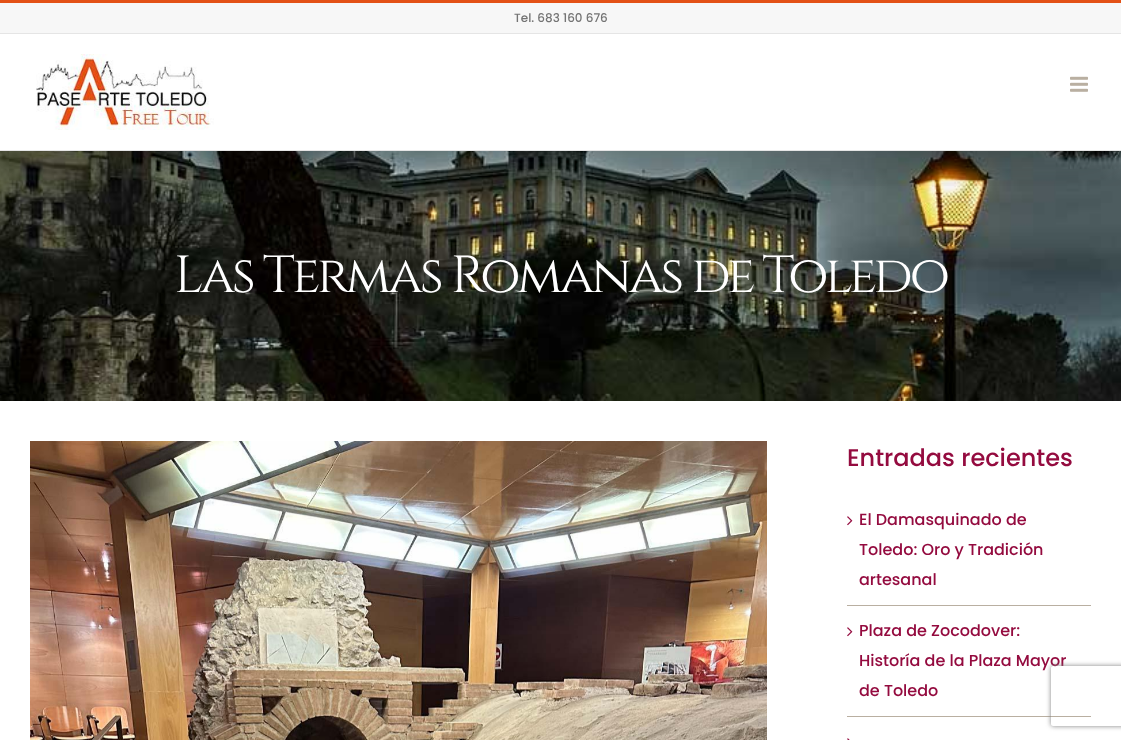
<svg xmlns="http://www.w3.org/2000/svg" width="1121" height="740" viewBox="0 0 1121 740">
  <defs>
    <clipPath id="clip1"><rect x="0" y="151" width="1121" height="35"/></clipPath>
    <clipPath id="clip2"><path d="M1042 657H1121V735H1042ZM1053 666H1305C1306 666 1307 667 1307 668V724C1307 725 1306 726 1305 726H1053C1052 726 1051 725 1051 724V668C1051 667 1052 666 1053 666Z" clip-rule="evenodd"/></clipPath>
  </defs>
  <rect width="100%" height="100%" fill="rgb(255,255,255)"/>
  <image x="0" y="151" width="1121" height="250" href="pic3.png"/>
  <g clip-path="url(#clip1)">
    <rect x="2" y="12" width="1117" height="147" fill="rgba(0,0,0,0.14)" filter="blur(25px)"/>
  </g>
  <rect x="0" y="3" width="1121" height="30" fill="rgb(247,247,247)"/>
  <rect x="0" y="0" width="1121" height="3" fill="rgb(227,81,22)"/>
  <rect x="0" y="33" width="1121" height="1" fill="rgb(229,229,229)"/>
  <text x="514" y="22" font-family="Poppins" font-size="12" font-weight="500" fill="rgb(116,116,116)">Tel. 683 160 676</text>
  <rect x="0" y="150" width="1121" height="1" fill="rgb(229,229,229)"/>
  <image x="36" y="54" width="178" height="76" href="pic1.png"/>
  <image x="1070" y="76" width="18" height="16" href="pic2.png"/>
  <text x="174" y="292" font-family="Cinzel" font-size="52" letter-spacing="-3" fill="rgb(255,255,255)">Las Termas Romanas de Toledo</text>
  <image x="30" y="441" width="737" height="299" href="pic4.png"/>
  <text x="847" y="466" font-family="Poppins" font-size="24" font-weight="500" fill="rgb(148,11,63)">Entradas recientes</text>
  <rect x="847" y="605" width="244" height="1" fill="rgb(185,175,161)"/>
  <image x="847" y="516" width="6" height="10" href="pic5.png"/>
  <g font-family="Poppins" font-size="16" font-weight="500" fill="rgb(148,11,63)">
    <text>
      <tspan x="859" y="525">El Damasquinado de</tspan>
      <tspan x="859" y="555">Toledo: Oro y Tradición</tspan>
      <tspan x="859" y="585">artesanal</tspan>
    </text>
  </g>
  <rect x="847" y="716" width="244" height="1" fill="rgb(185,175,161)"/>
  <image x="847" y="627" width="6" height="10" href="pic5.png"/>
  <g font-family="Poppins" font-size="16" font-weight="500" fill="rgb(148,11,63)">
    <text>
      <tspan x="859" y="636">Plaza de Zocodover:</tspan>
      <tspan x="859" y="666">Historía de la Plaza Mayor</tspan>
      <tspan x="859" y="696">de Toledo</tspan>
    </text>
  </g>
  <image x="847" y="738" width="3" height="2" href="pic6.png"/>
  <g clip-path="url(#clip2)">
    <rect x="1051" y="666" width="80" height="60" rx="2" fill="rgb(128,128,128)" filter="blur(2.5px)"/>
  </g>
</svg>
